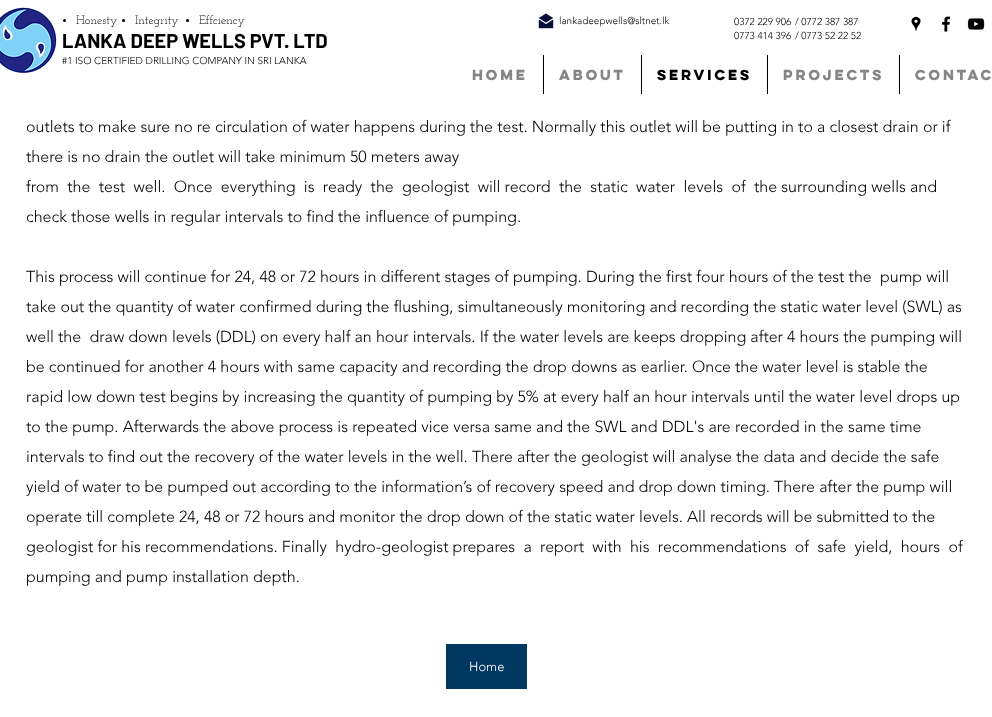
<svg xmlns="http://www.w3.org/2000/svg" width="992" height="717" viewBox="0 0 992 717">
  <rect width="100%" height="100%" fill="rgb(255,255,255)"/>
  <image x="0" y="7" width="57" height="66" href="pic1.png"/>
  <circle cx="64.5" cy="20.5" r="1.5" fill="rgb(0,0,0)"/>
  <text x="76" y="24" font-family="Josefin Slab" font-size="12" fill="rgb(0,0,0)">Honesty</text>
  <circle cx="123.5" cy="20.5" r="1.5" fill="rgb(0,0,0)"/>
  <text x="135" y="24" font-family="Josefin Slab" font-size="12" fill="rgb(0,0,0)">Integrity</text>
  <circle cx="187.5" cy="20.5" r="1.5" fill="rgb(0,0,0)"/>
  <text x="199" y="24" font-family="Josefin Slab" font-size="12" fill="rgb(0,0,0)">Effciency</text>
  <image x="538" y="13" width="16" height="16" href="pic2.png"/>
  <g font-family="'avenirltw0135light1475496'" font-size="10" font-weight="300" fill="rgb(0,0,0)">
    <text x="559" y="24">lankadeepwells@sltnet.lk</text>
    <text x="734" y="25">0372 229 906</text>
    <text x="795" y="25">/ 0772 387 387</text>
  </g>
  <image x="911" y="16" width="10" height="15" href="pic3.png"/>
  <image x="942" y="16" width="9" height="16" href="pic4.png"/>
  <image x="967" y="18" width="18" height="12" href="pic5.png"/>
  <text x="62" y="48" font-family="Barlow" font-size="20" font-weight="bold" fill="rgb(0,0,0)">LANKA DEEP WELLS PVT. LTD</text>
  <g font-family="'avenirltw0135light1475496'" font-size="10" font-weight="300" fill="rgb(0,0,0)">
    <text x="734" y="39">0773 414 396</text>
    <text x="795" y="39">/ 0773 52 22 52</text>
    <text x="62" y="64">#1 ISO CERTIFIED DRILLING COMPANY IN SRI LANKA</text>
  </g>
  <text x="472" y="80" font-family="'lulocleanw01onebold'" font-size="13" font-weight="bold" fill="rgb(133,133,133)">Home</text>
  <rect x="543" y="55" width="1" height="39" fill="rgb(0,0,0)"/>
  <text x="559" y="80" font-family="'lulocleanw01onebold'" font-size="13" font-weight="bold" fill="rgb(133,133,133)">About</text>
  <rect x="641" y="55" width="1" height="39" fill="rgb(0,0,0)"/>
  <text x="657" y="80" font-family="'lulocleanw01onebold'" font-size="13" font-weight="bold" fill="rgb(0,0,0)">Services</text>
  <rect x="767" y="55" width="1" height="39" fill="rgb(0,0,0)"/>
  <text x="783" y="80" font-family="'lulocleanw01onebold'" font-size="13" font-weight="bold" fill="rgb(133,133,133)">Projects</text>
  <rect x="899" y="55" width="1" height="39" fill="rgb(0,0,0)"/>
  <text x="915" y="80" font-family="'lulocleanw01onebold'" font-size="13" font-weight="bold" fill="rgb(133,133,133)">Contac</text>
  <g font-family="'avenirltw0135light1475496'" font-size="16" font-weight="300" fill="rgb(0,0,0)">
    <text xml:space="preserve"><tspan x="26" y="132">outlets to make sure no re circulation of water happens during the test. Normally this outlet will be putting in to a closest drain or if</tspan><tspan x="26" y="162">there is no drain the outlet will take minimum 50 meters away</tspan><tspan x="26" y="192">from  the  test  well.  Once  everything  is  ready  the  geologist  will record  the  static  water  levels  of  the surrounding wells and</tspan><tspan x="26" y="222">check those wells in regular intervals to find the influence of pumping.</tspan></text>
    <text xml:space="preserve"><tspan x="26" y="282">This process will continue for 24, 48 or 72 hours in different stages of pumping. During the first four hours of the test the  pump will</tspan><tspan x="26" y="312">take out the quantity of water confirmed during the flushing, simultaneously monitoring and recording the static water level (SWL) as</tspan><tspan x="26" y="342">well the  draw down levels (DDL) on every half an hour intervals. If the water levels are keeps dropping after 4 hours the pumping will</tspan><tspan x="26" y="372">be continued for another 4 hours with same capacity and recording the drop downs as earlier. Once the water level is stable the</tspan><tspan x="26" y="402">rapid low down test begins by increasing the quantity of pumping by 5% at every half an hour intervals until the water level drops up</tspan><tspan x="26" y="432">to the pump. Afterwards the above process is repeated vice versa same and the SWL and DDL's are recorded in the same time</tspan><tspan x="26" y="462">intervals to find out the recovery of the water levels in the well. There after the geologist will analyse the data and decide the safe</tspan><tspan x="26" y="492">yield of water to be pumped out according to the information’s of recovery speed and drop down timing. There after the pump will</tspan><tspan x="26" y="522">operate till complete 24, 48 or 72 hours and monitor the drop down of the static water levels. All records will be submitted to the</tspan><tspan x="26" y="552">geologist for his recommendations. Finally  hydro-geologist prepares  a  report  with  his  recommendations  of  safe  yield,  hours  of</tspan><tspan x="26" y="582">pumping and pump installation depth.</tspan></text>
  </g>
  <rect x="446" y="644" width="81" height="45" fill="rgb(0,56,98)"/>
  <text x="469" y="671" font-family="'avenirltw0135light1475496'" font-size="13" font-weight="300" fill="rgb(255,255,255)">Home</text>
</svg>
